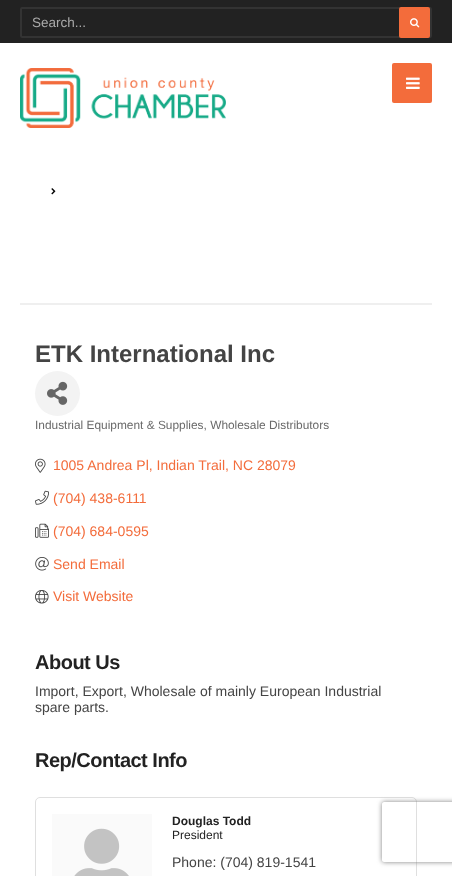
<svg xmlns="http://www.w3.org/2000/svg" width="452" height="876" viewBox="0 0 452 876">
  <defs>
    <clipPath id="clip1"><path d="M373 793H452V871H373ZM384 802H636C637 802 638 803 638 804V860C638 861 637 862 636 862H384C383 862 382 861 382 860V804C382 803 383 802 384 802Z" clip-rule="evenodd"/></clipPath>
  </defs>
  <rect width="100%" height="100%" fill="rgb(255,255,255)"/>
  <rect x="0" y="0" width="452" height="43" fill="rgb(34,34,34)"/>
  <rect x="21" y="8" width="410" height="29" rx="1" fill="none" stroke="rgb(51,51,51)" stroke-width="2"/>
  <text x="32" y="27" font-family="Liberation Sans" font-size="13.5" fill="rgb(170,170,170)">Search...</text>
  <rect x="399" y="7" width="31" height="31" rx="2" fill="rgb(243,108,59)"/>
  <image x="410" y="18" width="10" height="10" href="pic1.png"/>
  <image x="20" y="68" width="206" height="60" href="pic2.png"/>
  <rect x="392" y="63" width="40" height="40" rx="2" fill="rgb(243,108,59)"/>
  <image x="406" y="77" width="14" height="12" href="pic3.png"/>
  <image x="51" y="188" width="5" height="7" href="pic4.png"/>
  <rect x="20" y="303" width="412" height="2" fill="rgb(239,239,239)"/>
  <text x="35" y="362" font-family="Liberation Sans" font-size="24" font-weight="bold" fill="rgb(68,68,68)">ETK International Inc</text>
  <circle cx="57.5" cy="393.5" r="22.5" fill="rgb(243,243,243)"/>
  <image x="47" y="381" width="21" height="24" href="pic5.png"/>
  <text x="35" y="429" font-family="Liberation Sans" font-size="11.9" fill="rgb(105,105,105)">Industrial Equipment &amp; Supplies, Wholesale Distributors</text>
  <image x="35" y="458" width="11" height="15" href="pic6.png"/>
  <text x="53" y="470" font-family="Liberation Sans" font-size="14" fill="rgb(243,108,59)">1005 Andrea Pl, Indian Trail, NC 28079</text>
  <image x="35" y="490" width="14" height="15" href="pic7.png"/>
  <text x="53" y="503" font-family="Liberation Sans" font-size="14" fill="rgb(243,108,59)">(704) 438-6111</text>
  <image x="35" y="523" width="14" height="15" href="pic8.png"/>
  <text x="53" y="536" font-family="Liberation Sans" font-size="14" fill="rgb(243,108,59)">(704) 684-0595</text>
  <image x="35" y="557" width="14" height="14" href="pic9.png"/>
  <text x="53" y="569" font-family="Liberation Sans" font-size="14" fill="rgb(243,108,59)">Send Email</text>
  <image x="35" y="590" width="14" height="14" href="pic10.png"/>
  <text x="53" y="601" font-family="Liberation Sans" font-size="14" fill="rgb(243,108,59)">Visit Website</text>
  <text x="35" y="669" font-family="Liberation Sans" font-size="20" font-weight="bold" letter-spacing="-0.5" fill="rgb(34,34,34)">About Us</text>
  <g font-family="Liberation Sans" font-size="14" fill="rgb(68,68,68)">
    <text>
      <tspan x="35" y="696">Import, Export, Wholesale of mainly European Industrial</tspan>
      <tspan x="35" y="712">spare parts.</tspan>
    </text>
  </g>
  <text x="35" y="767" font-family="Liberation Sans" font-size="20" font-weight="bold" letter-spacing="-0.5" fill="rgb(34,34,34)">Rep/Contact Info</text>
  <rect x="35.5" y="797.5" width="381" height="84" rx="4.5" fill="none" stroke="rgb(223,223,223)"/>
  <rect x="52" y="814" width="100" height="62" fill="rgb(250,250,250)"/>
  <image x="74" y="828" width="55" height="48" href="pic11.png"/>
  <text x="172" y="825" font-family="Liberation Sans" font-size="12" font-weight="bold" fill="rgb(34,34,34)">Douglas Todd</text>
  <text x="172" y="839" font-family="Liberation Sans" font-size="12" fill="rgb(34,34,34)">President</text>
  <text x="172" y="867" font-family="Liberation Sans" font-size="14" fill="rgb(68,68,68)">Phone: (704) 819-1541</text>
  <g clip-path="url(#clip1)">
    <rect x="382" y="802" width="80" height="60" rx="2" fill="rgb(128,128,128)" filter="blur(2.5px)"/>
  </g>
</svg>
